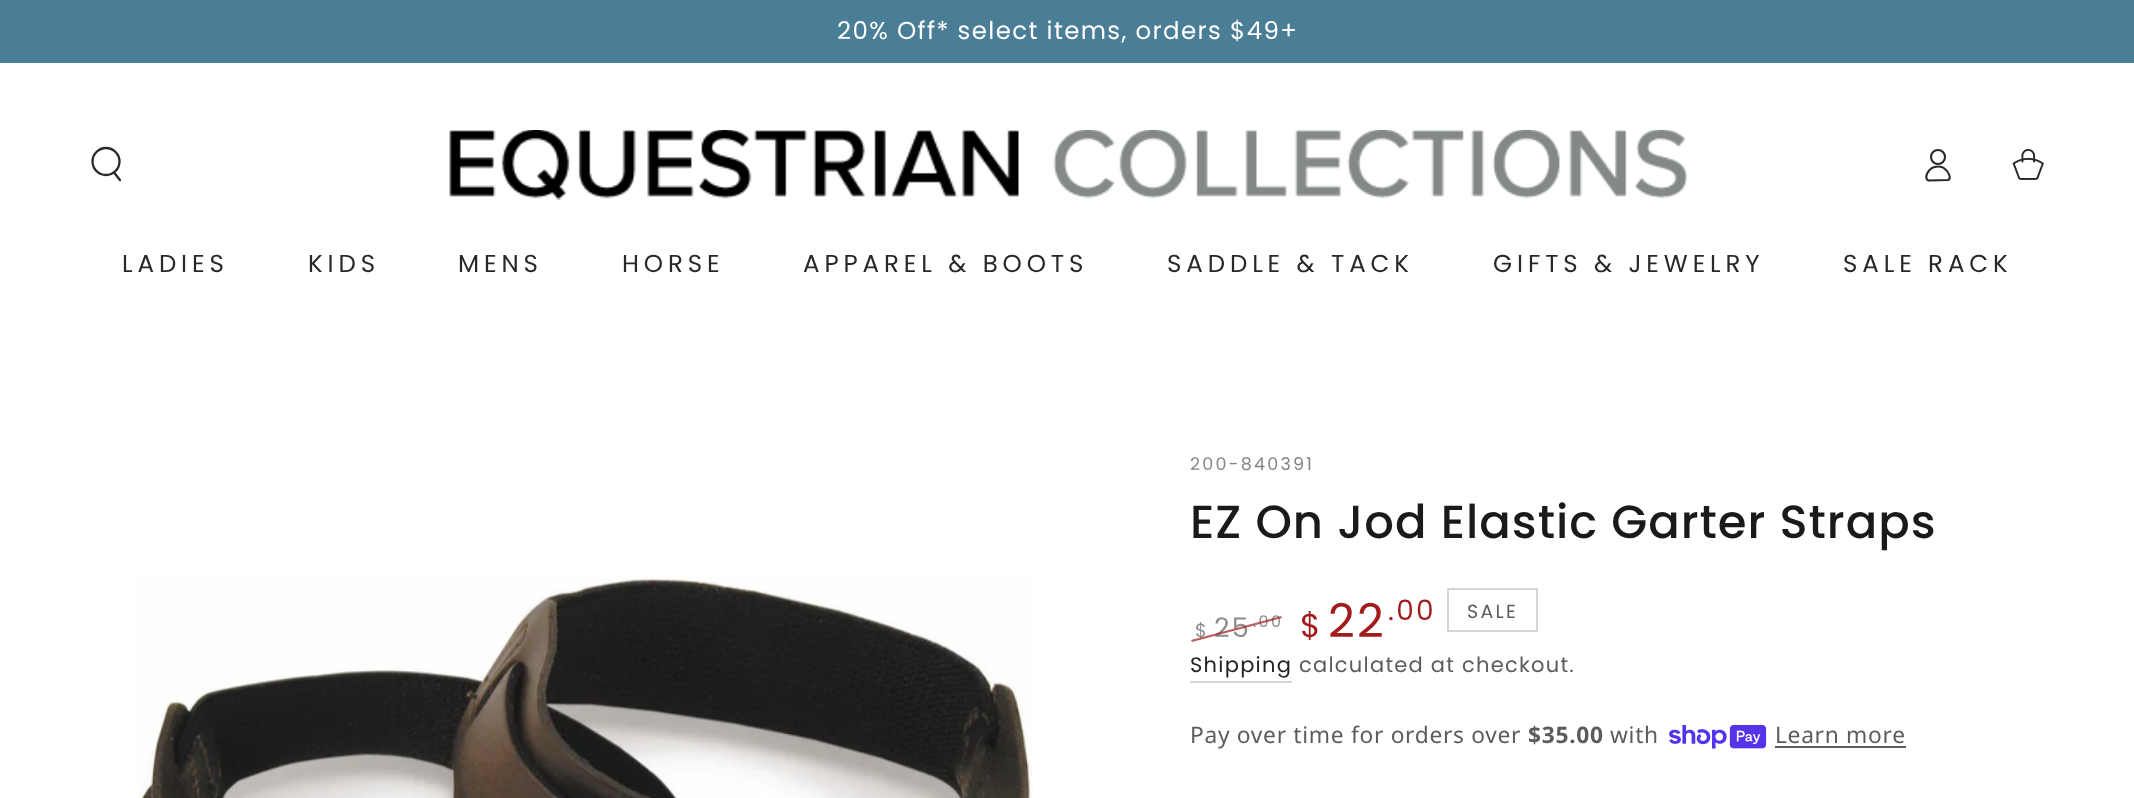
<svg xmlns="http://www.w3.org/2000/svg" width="2134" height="798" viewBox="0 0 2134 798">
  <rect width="100%" height="100%" fill="rgb(255,255,255)"/>
  <rect x="0" y="0" width="2134" height="63" fill="rgb(74,125,150)"/>
  <text x="837" y="39" font-family="Poppins" font-size="24.5" letter-spacing="1.35" fill="rgb(255,255,255)">20% Off* select items, orders $49+</text>
  <circle cx="106" cy="161.5" r="13.5" fill="none" stroke="rgb(40,40,40)" stroke-width="2.3"/>
  <path d="M114 172.5L120 180" fill="none" stroke="rgb(40,40,40)" stroke-width="2.3" stroke-linecap="round"/>
  <image x="449" y="130" width="1238" height="70" href="pic1.png"/>
  <path d="M1938 166.5C1927.5 166.5 1923 180 1929 180.5L1948 180C1952 178.5 1948 171.5 1946 170C1944 167.5 1941 166.5 1938 166.5Z" fill="none" stroke="rgb(40,40,40)" stroke-width="2.1"/>
  <circle cx="1938" cy="157" r="7" fill="none" stroke="rgb(40,40,40)" stroke-width="2.1"/>
  <image x="2012" y="149" width="32" height="31" href="pic2.png"/>
  <g font-family="Poppins" font-size="24.5" letter-spacing="4.9" fill="rgb(40,40,40)">
    <text x="122" y="272">LADIES</text>
    <text x="308" y="272">KIDS</text>
    <text x="458" y="272">MENS</text>
    <text x="622" y="272">HORSE</text>
    <text x="803" y="272">APPAREL &amp; BOOTS</text>
    <text x="1167" y="272">SADDLE &amp; TACK</text>
    <text x="1493" y="272">GIFTS &amp; JEWELRY</text>
    <text x="1843" y="272">SALE RACK</text>
  </g>
  <image x="139" y="576" width="894" height="222" href="pic3.png"/>
  <text x="1190" y="470" font-family="Poppins" font-size="17.5" letter-spacing="2.25" fill="rgb(132,133,133)">200-840391</text>
  <text x="1190" y="538" font-family="Poppins" font-size="46.5" font-weight="500" letter-spacing="1" fill="rgb(26,27,24)">EZ On Jod Elastic Garter Straps</text>
  <text x="1253" y="627" font-family="Poppins" font-size="16" letter-spacing="2.25" fill="rgb(140,141,141)">.00</text>
  <text x="1195" y="637" font-family="Poppins" font-size="19" letter-spacing="2.25" fill="rgb(140,141,141)">$</text>
  <text x="1214" y="637" font-family="Poppins" font-size="27" letter-spacing="2.25" fill="rgb(140,141,141)">25</text>
  <path d="M1191 640L1281 616L1282 618L1192 642Z" fill="rgba(161,29,29,0.7)"/>
  <text x="1300" y="637" font-family="Poppins" font-size="33" letter-spacing="2.25" fill="rgb(161,29,29)">$</text>
  <text x="1328" y="637" font-family="Poppins" font-size="46.5" letter-spacing="2.25" fill="rgb(161,29,29)">22</text>
  <text x="1388" y="620" font-family="Poppins" font-size="28" letter-spacing="2.25" fill="rgb(161,29,29)">.00</text>
  <rect x="1448" y="589" width="89" height="42" fill="none" stroke="rgb(210,213,217)" stroke-width="2"/>
  <text x="1467" y="618" font-family="Poppins" font-size="19" letter-spacing="2.25" fill="rgb(91,92,92)">SALE</text>
  <text x="1190" y="672" font-family="Poppins" font-size="21" letter-spacing="1.25" fill="rgb(33,35,38)">Shipping</text>
  <rect x="1190" y="681" width="102" height="2" fill="rgb(210,213,217)"/>
  <text x="1299" y="672" font-family="Poppins" font-size="21" letter-spacing="1.25" fill="rgb(91,92,92)">calculated at checkout.</text>
  <text x="1190" y="743" font-family="Noto Sans" font-size="22.75" letter-spacing="0.7" fill="rgb(91,92,92)">Pay over time for orders over</text>
  <text x="1528" y="743" font-family="Noto Sans" font-size="22.75" font-weight="bold" letter-spacing="0.7" fill="rgb(91,92,92)">$35.00</text>
  <text x="1610" y="743" font-family="Noto Sans" font-size="22.75" letter-spacing="0.7" fill="rgb(91,92,92)">with</text>
  <image x="1669" y="725" width="98" height="24" href="pic4.png"/>
  <text x="1775" y="743" font-family="Noto Sans" font-size="22.75" letter-spacing="0.7" fill="rgb(91,92,92)">Learn more</text>
  <rect x="1775" y="746" width="131" height="2" fill="rgb(91,92,92)"/>
</svg>
